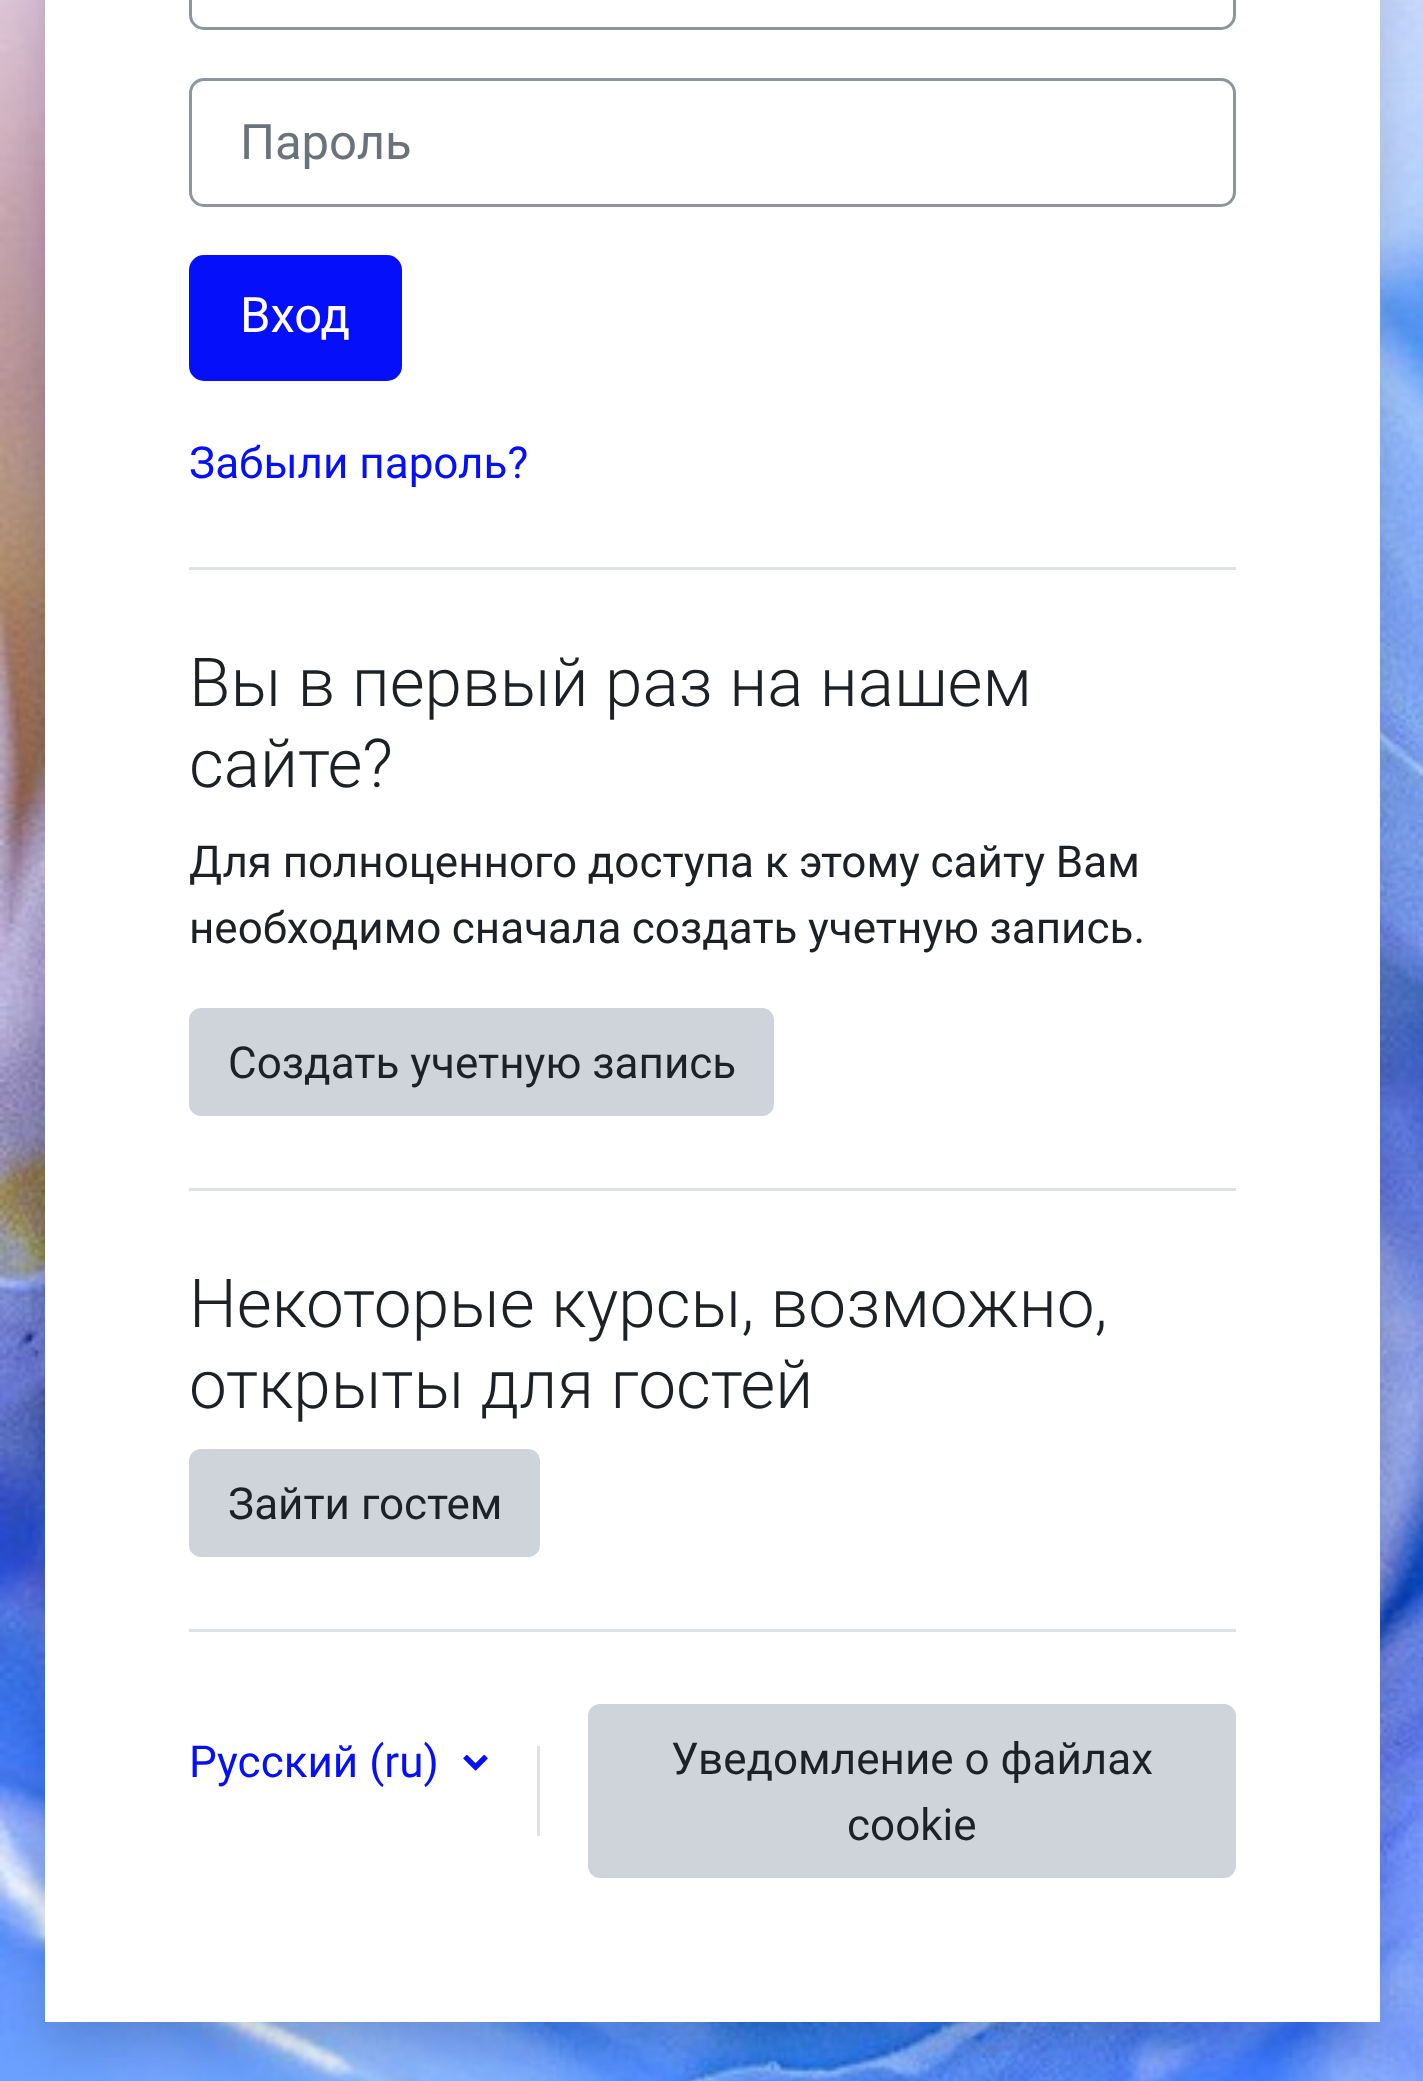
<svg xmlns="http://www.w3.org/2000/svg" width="1423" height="2081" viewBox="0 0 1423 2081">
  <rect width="100%" height="100%" fill="rgb(255,255,255)"/>
  <image x="0" y="0" width="1423" height="2081" href="pic1.png"/>
  <rect x="45" y="-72" width="1335" height="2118" fill="rgba(0,0,0,0.15)" filter="blur(24px)"/>
  <rect x="45" y="0" width="1335" height="2022" fill="rgb(255,255,255)"/>
  <rect x="190.5" y="-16.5" width="1044" height="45" rx="13.5" fill="none" stroke="rgb(143,149,158)" stroke-width="3"/>
  <rect x="190.5" y="79.5" width="1044" height="126" rx="13.5" fill="none" stroke="rgb(143,149,158)" stroke-width="3"/>
  <text x="240" y="159" font-family="Roboto" font-size="49" fill="rgb(106,115,123)">Пароль</text>
  <rect x="190.5" y="256.5" width="210" height="123" rx="13.5" fill="rgb(5,15,250)" stroke="rgb(5,15,250)" stroke-width="3"/>
  <text x="240" y="332" font-family="Roboto" font-size="49" fill="rgb(255,255,255)">Вход</text>
  <text x="189" y="478" font-family="Roboto" font-size="44" fill="rgb(5,15,250)">Забыли пароль?</text>
  <rect x="189" y="567" width="1047" height="3" fill="rgb(222,226,230)"/>
  <g font-family="Roboto" font-size="67.5" font-weight="300" fill="rgb(29,33,37)">
    <text>
      <tspan x="189" y="706">Вы в первый раз на нашем</tspan>
      <tspan x="189" y="787">сайте?</tspan>
    </text>
  </g>
  <g font-family="Roboto" font-size="44" fill="rgb(29,33,37)">
    <text>
      <tspan x="189" y="877" word-spacing="-0.25">Для полноценного доступа к этому сайту Вам</tspan>
      <tspan x="189" y="943" word-spacing="-0.5">необходимо сначала создать учетную запись.</tspan>
    </text>
  </g>
  <rect x="190.5" y="1009.5" width="582" height="105" rx="10.5" fill="rgb(206,212,218)" stroke="rgb(206,212,218)" stroke-width="3"/>
  <text x="228" y="1078" font-family="Roboto" font-size="44" fill="rgb(29,33,37)">Создать учетную запись</text>
  <rect x="189" y="1188" width="1047" height="3" fill="rgb(222,226,230)"/>
  <g font-family="Roboto" font-size="67.5" font-weight="300" fill="rgb(29,33,37)">
    <text>
      <tspan x="189" y="1327">Некоторые курсы, возможно,</tspan>
      <tspan x="189" y="1408">открыты для гостей</tspan>
    </text>
  </g>
  <rect x="190.5" y="1450.5" width="348" height="105" rx="10.5" fill="rgb(206,212,218)" stroke="rgb(206,212,218)" stroke-width="3"/>
  <text x="228" y="1519" font-family="Roboto" font-size="44" fill="rgb(29,33,37)">Зайти гостем</text>
  <rect x="189" y="1629" width="1047" height="3" fill="rgb(222,226,230)"/>
  <text x="189" y="1777" font-family="Roboto" font-size="44" fill="rgb(5,15,250)">Русский (ru)</text>
  <image x="463" y="1754" width="25" height="17" href="pic2.png"/>
  <rect x="537" y="1746" width="3" height="90" fill="rgb(222,226,230)"/>
  <rect x="589.5" y="1705.5" width="645" height="171" rx="10.5" fill="rgb(206,212,218)" stroke="rgb(206,212,218)" stroke-width="3"/>
  <g font-family="Roboto" font-size="44" fill="rgb(29,33,37)">
    <text x="671" y="1774">Уведомление о файлах</text>
    <text x="847" y="1840">cookie</text>
  </g>
</svg>
